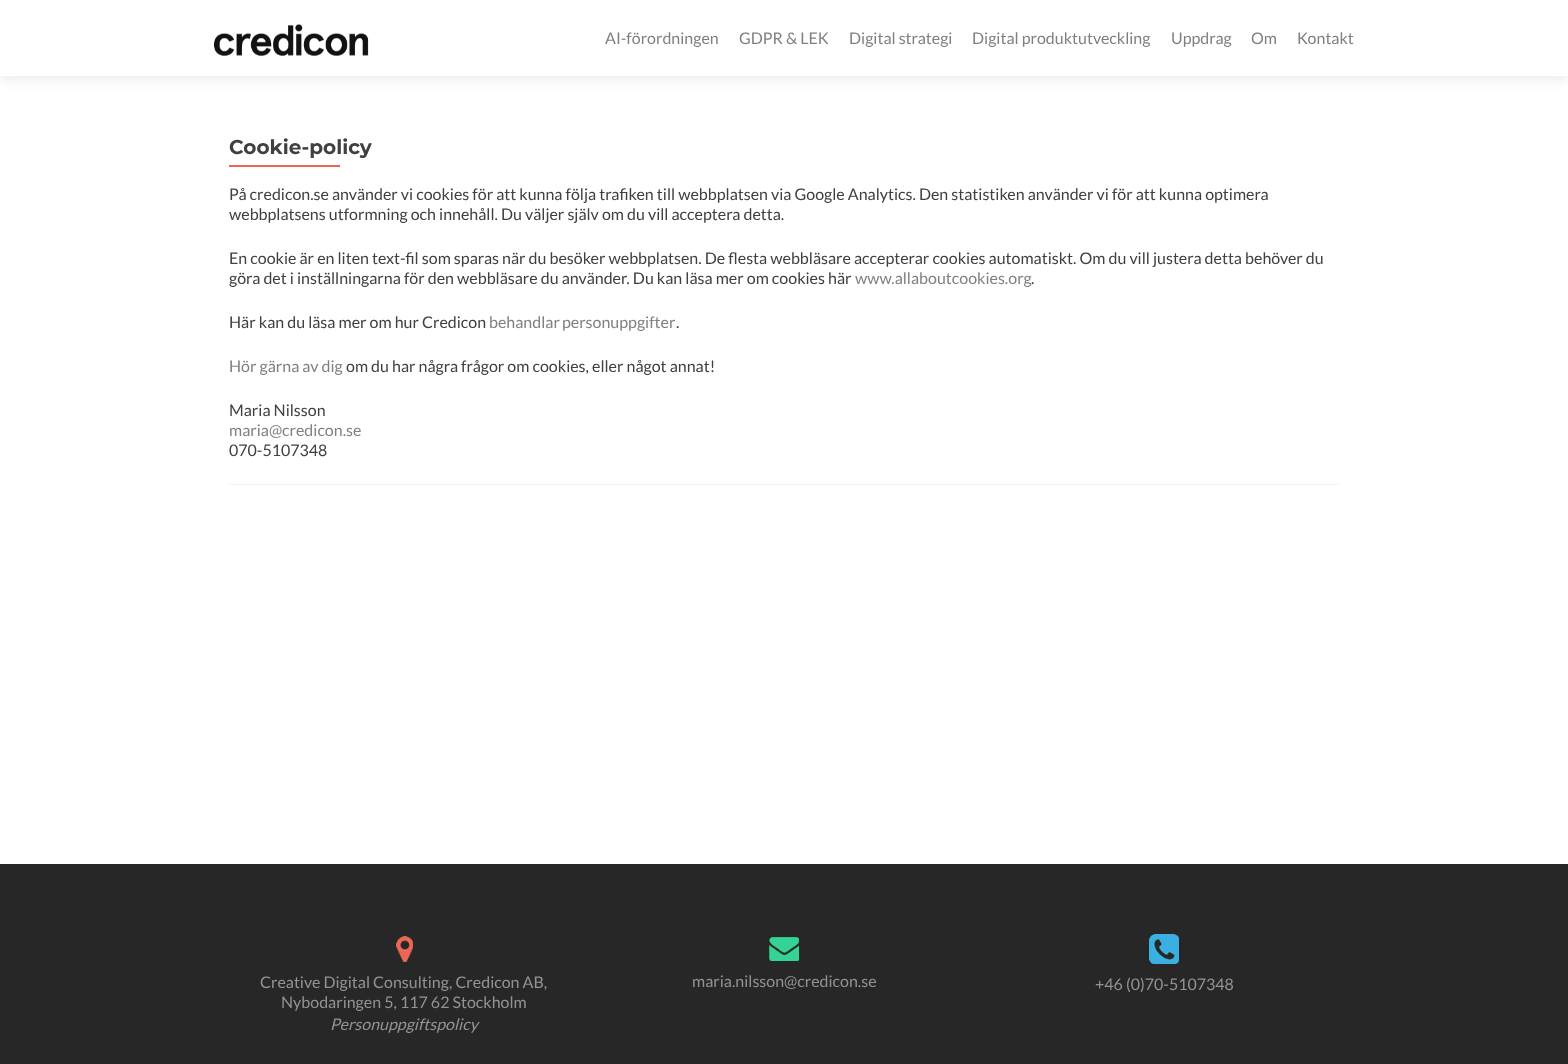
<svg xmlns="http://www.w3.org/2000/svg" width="1568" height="1064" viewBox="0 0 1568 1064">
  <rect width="100%" height="100%" fill="rgb(255,255,255)"/>
  <rect x="0" y="5" width="1568" height="76" fill="rgba(50,50,50,0.08)" filter="blur(5.5px)"/>
  <rect x="0" y="0" width="1568" height="76" fill="rgb(255,255,255)"/>
  <image x="214" y="24" width="155" height="33" href="pic1.png"/>
  <g font-family="Lato" font-size="16" fill="rgb(128,128,128)">
    <text x="605" y="44">AI-förordningen</text>
    <text x="739" y="44">GDPR &amp; LEK</text>
    <text x="849" y="44">Digital strategi</text>
    <text x="972" y="44">Digital produktutveckling</text>
    <text x="1171" y="44">Uppdrag</text>
    <text x="1251" y="44">Om</text>
    <text x="1297" y="44">Kontakt</text>
  </g>
  <rect x="229" y="484" width="1110" height="1" fill="rgb(242,242,242)"/>
  <text x="229" y="154" font-family="Montserrat" font-size="20" font-weight="100" fill="rgb(64,64,64)">Cookie-policy</text>
  <rect x="229" y="165" width="111" height="2" fill="rgb(233,102,86)"/>
  <g font-family="Lato" font-size="16" fill="rgb(64,64,64)">
    <text>
      <tspan x="229" y="200">På credicon.se använder vi cookies för att kunna följa trafiken till webbplatsen via Google Analytics. Den statistiken använder vi för att kunna optimera</tspan>
      <tspan x="229" y="220">webbplatsens utformning och innehåll. Du väljer själv om du vill acceptera detta.</tspan>
    </text>
    <text>
      <tspan x="229" y="264">En cookie är en liten text-fil som sparas när du besöker webbplatsen. De flesta webbläsare accepterar cookies automatiskt. Om du vill justera detta behöver du</tspan>
      <tspan x="229" y="284">göra det i inställningarna för den webbläsare du använder. Du kan läsa mer om cookies här</tspan>
    </text>
  </g>
  <text x="855" y="284" font-family="Lato" font-size="16" fill="rgb(128,128,128)">www.allaboutcookies.org</text>
  <g font-family="Lato" font-size="16" fill="rgb(64,64,64)">
    <text x="1031" y="284">.</text>
    <text x="229" y="328">Här kan du läsa mer om hur Credicon</text>
  </g>
  <text x="489" y="328" word-spacing="-1" font-family="Lato" font-size="16" fill="rgb(128,128,128)">behandlar personuppgifter</text>
  <text x="676" y="328" font-family="Lato" font-size="16" fill="rgb(64,64,64)">.</text>
  <text x="229" y="372" font-family="Lato" font-size="16" fill="rgb(128,128,128)">Hör gärna av dig</text>
  <g font-family="Lato" font-size="16" fill="rgb(64,64,64)">
    <text x="346" y="372">om du har några frågor om cookies, eller något annat!</text>
    <text x="229" y="416">Maria Nilsson</text>
  </g>
  <text x="229" y="436" font-family="Lato" font-size="16" fill="rgb(128,128,128)">maria@credicon.se</text>
  <text x="229" y="456" font-family="Lato" font-size="16" fill="rgb(64,64,64)">070-5107348</text>
  <rect x="0" y="864" width="1568" height="200" fill="rgb(39,39,39)"/>
  <image x="396" y="936" width="17" height="26" href="pic2.png"/>
  <g font-family="Lato" font-size="16" fill="rgb(147,147,147)">
    <text x="260" y="988">Creative Digital Consulting, Credicon AB,</text>
    <text x="281" y="1008">Nybodaringen 5, 117 62 Stockholm</text>
  </g>
  <text x="330" y="1030" font-family="Lato" font-size="16" font-style="italic" fill="rgb(147,147,147)">Personuppgiftspolicy</text>
  <image x="769" y="937" width="30" height="24" href="pic3.png"/>
  <text x="692" y="987" font-family="Lato" font-size="16" fill="rgb(147,147,147)">maria.nilsson@credicon.se</text>
  <image x="1149" y="934" width="30" height="30" href="pic4.png"/>
  <text x="1095" y="990" font-family="Lato" font-size="16" fill="rgb(147,147,147)">+46 (0)70-5107348</text>
</svg>
